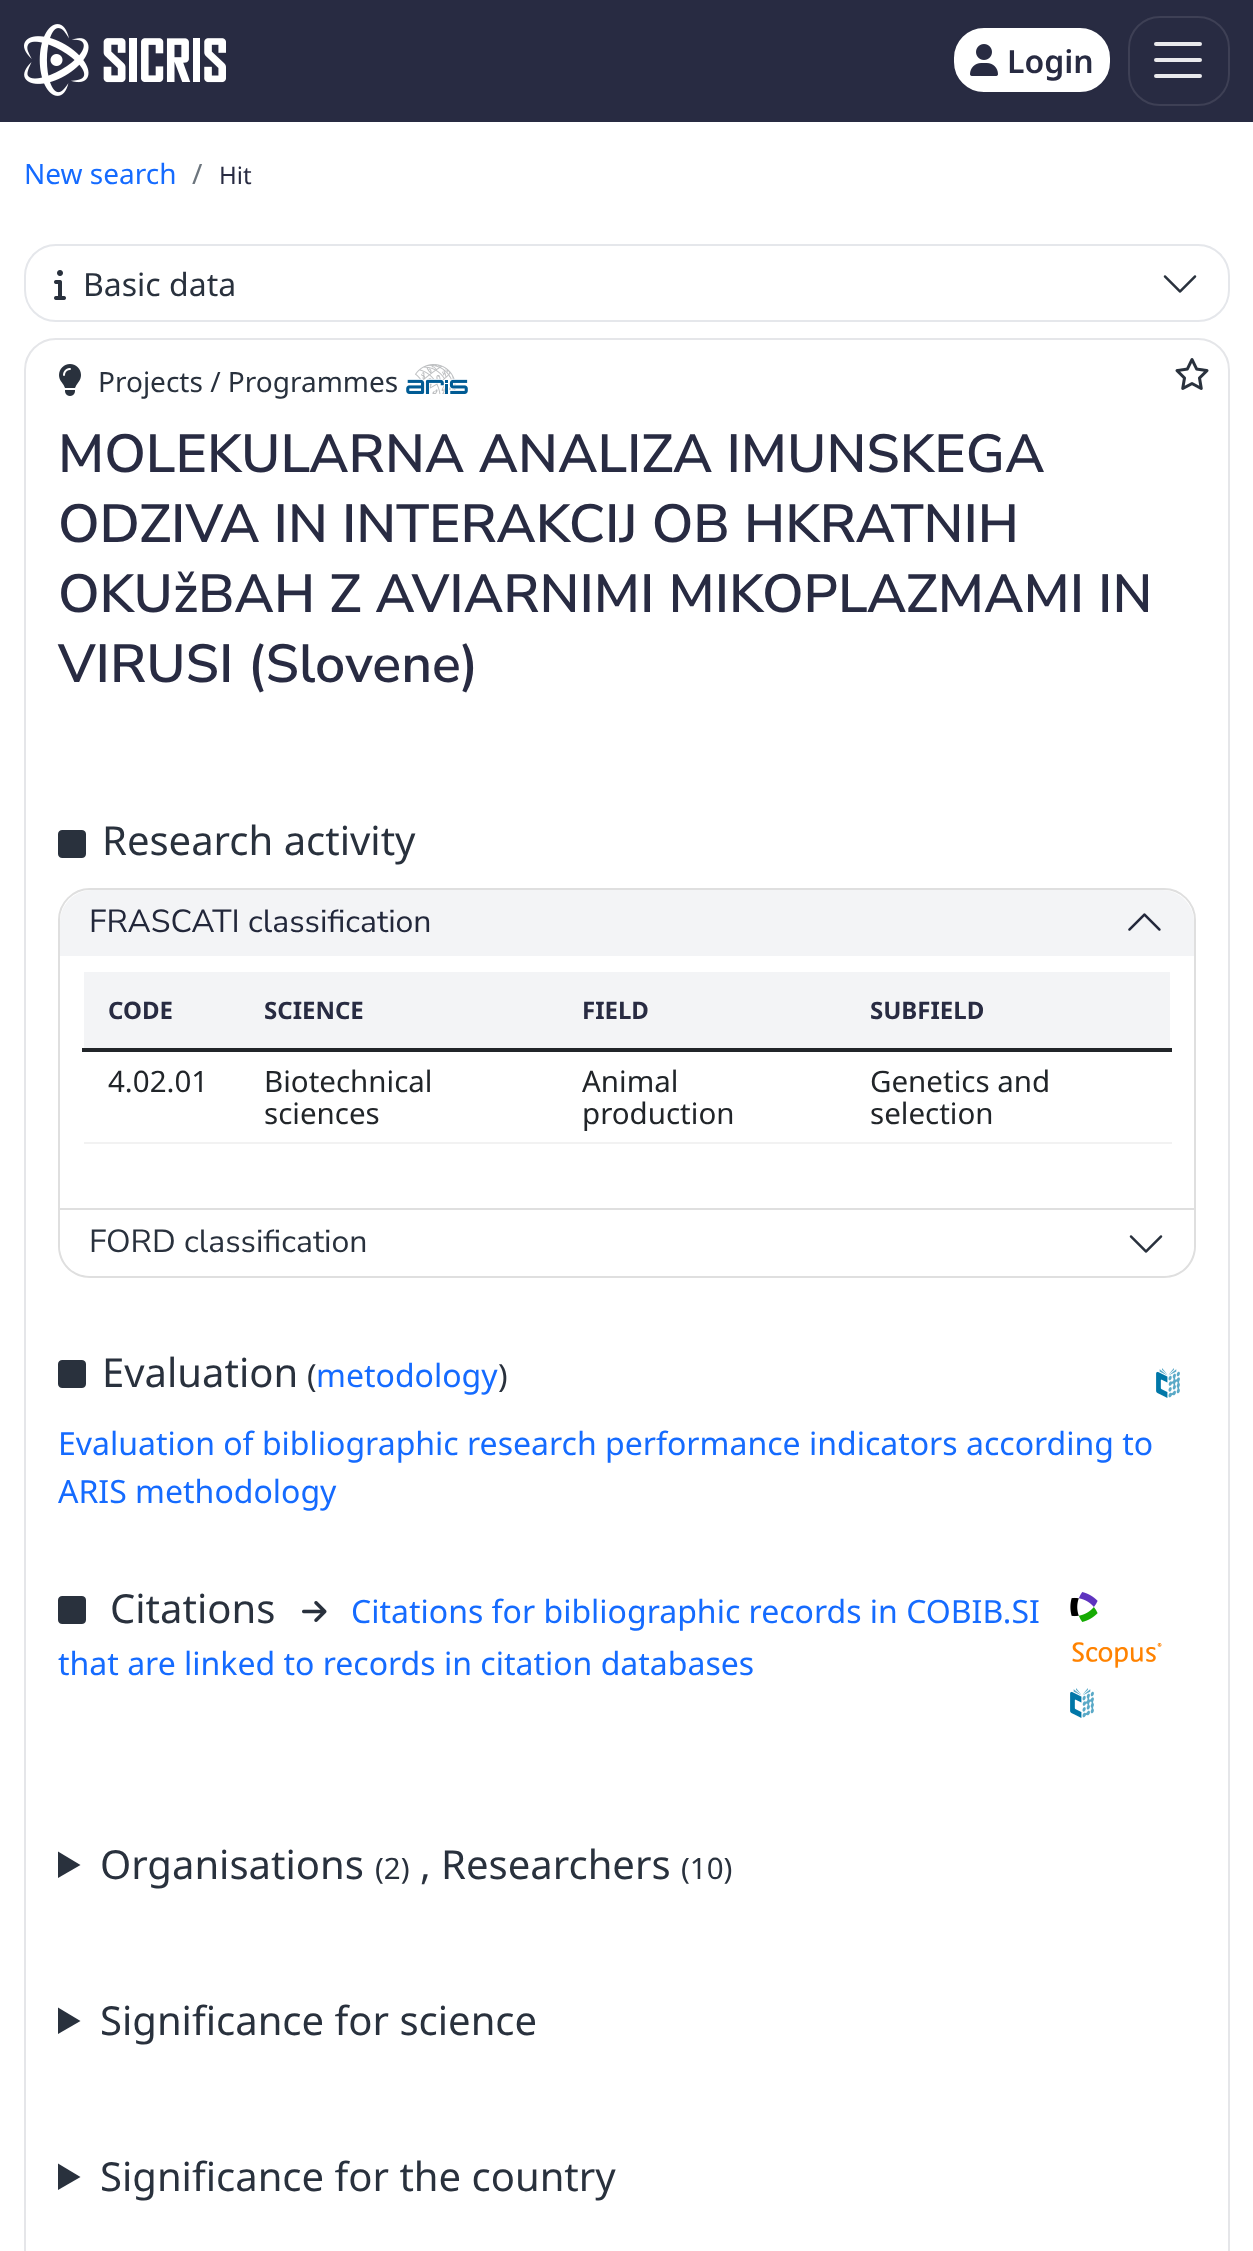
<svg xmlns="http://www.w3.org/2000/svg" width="1253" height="2251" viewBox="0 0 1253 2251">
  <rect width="100%" height="100%" fill="rgb(255,255,255)"/>
  <rect x="0" y="0" width="1253" height="122" fill="rgb(40,43,66)"/>
  <image x="24" y="24" width="202" height="72" href="pic1.png"/>
  <rect x="953" y="27" width="158" height="66" rx="31" fill="rgb(255,255,255)" stroke="rgb(40,43,66)" stroke-width="2"/>
  <image x="970" y="44" width="28" height="32" href="pic2.png"/>
  <text x="1007" y="73" font-family="Noto Sans" font-size="32" font-weight="600" fill="rgb(40,43,66)">Login</text>
  <rect x="1129" y="17" width="100" height="88" rx="31" fill="none" stroke="rgb(62,64,85)" stroke-width="2"/>
  <path d="M1156 44H1200M1156 60H1200M1156 76H1200" fill="none" stroke="rgb(234,234,236)" stroke-width="4" stroke-linecap="round"/>
  <text x="24" y="184" font-family="Noto Sans" font-size="28" fill="rgb(21,107,255)">New search</text>
  <text x="192" y="184" font-family="Noto Sans" font-size="28" fill="rgb(108,117,125)">/</text>
  <text x="219" y="184" font-family="Noto Sans" font-size="24" fill="rgb(40,43,66)">Hit</text>
  <rect x="25" y="245" width="1204" height="76" rx="31" fill="none" stroke="rgb(229,231,235)" stroke-width="2"/>
  <image x="54" y="270" width="12" height="30" href="pic3.png"/>
  <text x="83" y="296" font-family="Noto Sans" font-size="32" fill="rgb(41,49,61)">Basic data</text>
  <image x="1163" y="275" width="34" height="18" href="pic4.png"/>
  <rect x="25" y="339" width="1204" height="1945" rx="31" fill="none" stroke="rgb(229,230,233)" stroke-width="2"/>
  <image x="59" y="364" width="22" height="32" href="pic5.png"/>
  <text x="98" y="392" font-family="Noto Sans" font-size="28" fill="rgb(41,49,61)">Projects / Programmes</text>
  <image x="406" y="364" width="62" height="30" href="pic6.png"/>
  <g font-family="Nunito Sans" font-size="53.7" font-weight="600" fill="rgb(40,43,66)">
    <text>
      <tspan x="58" y="472">MOLEKULARNA ANALIZA IMUNSKEGA</tspan>
      <tspan x="58" y="542">ODZIVA IN INTERAKCIJ OB HKRATNIH</tspan>
      <tspan x="58" y="612">OKUžBAH Z AVIARNIMI MIKOPLAZMAMI IN</tspan>
      <tspan x="58" y="682">VIRUSI (Slovene)</tspan>
    </text>
  </g>
  <image x="58" y="830" width="28" height="28" href="pic7.png"/>
  <text x="102" y="855" font-family="Noto Sans" font-size="40" fill="rgb(41,49,61)">Research activity</text>
  <path d="M90 889H1164C1181 889 1195 903 1195 920V1209H59V920C59 903 73 889 90 889Z" fill="none" stroke="rgb(223,223,223)" stroke-width="2"/>
  <path d="M92 890H1162C1179.5 890 1194 904.5 1194 922V956H60V922C60 904.5 74.5 890 92 890Z" fill="rgb(243,244,246)"/>
  <text x="89" y="932" font-family="Nunito Sans" font-size="32" fill="rgb(34,39,58)">FRASCATI classification</text>
  <image x="1128" y="913" width="33" height="18" href="pic8.png"/>
  <rect x="84" y="972" width="1086" height="76" fill="rgb(243,244,246)"/>
  <g font-family="Noto Sans" font-size="24" font-weight="bold" fill="rgb(40,43,66)">
    <text x="108" y="1019">CODE</text>
    <text x="264" y="1019">SCIENCE</text>
    <text x="582" y="1019">FIELD</text>
    <text x="870" y="1019">SUBFIELD</text>
  </g>
  <rect x="82" y="1048" width="1090" height="4" fill="rgb(33,37,41)"/>
  <g font-family="Noto Sans" font-size="29.5" fill="rgb(33,37,41)">
    <text x="108" y="1092">4.02.01</text>
    <text>
      <tspan x="264" y="1092">Biotechnical</tspan>
      <tspan x="264" y="1124">sciences</tspan>
    </text>
    <text>
      <tspan x="582" y="1092">Animal</tspan>
      <tspan x="582" y="1124">production</tspan>
    </text>
  </g>
  <rect x="84" y="1142" width="1088" height="2" fill="rgb(242,242,242)"/>
  <g font-family="Noto Sans" font-size="29.5" fill="rgb(33,37,41)">
    <text>
      <tspan x="870" y="1092">Genetics and</tspan>
      <tspan x="870" y="1124">selection</tspan>
    </text>
  </g>
  <path d="M58 1210H1196V1246C1196 1264 1182 1278 1164 1278H90C72 1278 58 1264 58 1246ZM60 1210H1194V1246C1194 1263 1181 1276 1164 1276H90C73 1276 60 1263 60 1246Z" fill="rgb(223,223,223)" fill-rule="evenodd"/>
  <path d="M60 1210H1194V1244C1194 1261.5 1179.5 1276 1162 1276H92C74.5 1276 60 1261.5 60 1244Z" fill="rgb(255,255,255)"/>
  <text x="89" y="1252" font-family="Nunito Sans" font-size="32" fill="rgb(41,49,61)">FORD classification</text>
  <image x="1129" y="1235" width="34" height="18" href="pic4.png"/>
  <image x="58" y="1360" width="28" height="28" href="pic7.png"/>
  <text x="102" y="1387" font-family="Noto Sans" font-size="40" fill="rgb(41,49,61)">Evaluation</text>
  <text x="307" y="1387" font-family="Noto Sans" font-size="32" fill="rgb(41,49,61)">(</text>
  <text x="316" y="1387" font-family="Noto Sans" font-size="32" fill="rgb(21,107,255)">metodology</text>
  <text x="498" y="1387" font-family="Noto Sans" font-size="32" fill="rgb(41,49,61)">)</text>
  <image x="1156" y="1368" width="24" height="30" href="pic9.png"/>
  <g font-family="Noto Sans" font-size="32" fill="rgb(21,107,255)">
    <text>
      <tspan x="58" y="1455">Evaluation of bibliographic research performance indicators according to</tspan>
      <tspan x="58" y="1503">ARIS methodology</tspan>
    </text>
  </g>
  <image x="58" y="1596" width="28" height="28" href="pic7.png"/>
  <text x="110" y="1623" font-family="Noto Sans" font-size="40" fill="rgb(41,49,61)">Citations</text>
  <image x="302" y="1601" width="25" height="21" href="pic10.png"/>
  <g font-family="Noto Sans" font-size="32" fill="rgb(21,107,255)">
    <text x="351" y="1623">Citations for bibliographic records in COBIB.SI</text>
    <text x="58" y="1675">that are linked to records in citation databases</text>
  </g>
  <image x="1070" y="1592" width="28" height="30" href="pic11.png"/>
  <image x="1072" y="1642" width="90" height="26" href="pic12.png"/>
  <image x="1070" y="1688" width="24" height="30" href="pic9.png"/>
  <path d="M58 1851.5L80.5 1865L58 1878Z" fill="rgb(41,49,61)"/>
  <text x="100" y="1879" font-family="Noto Sans" font-size="40" fill="rgb(41,49,61)">Organisations</text>
  <text x="375" y="1879" font-family="Noto Sans" font-size="29.5" fill="rgb(41,49,61)">(2)</text>
  <text x="420" y="1879" font-family="Noto Sans" font-size="40" fill="rgb(41,49,61)">, Researchers</text>
  <text x="681" y="1879" font-family="Noto Sans" font-size="29.5" fill="rgb(41,49,61)">(10)</text>
  <path d="M58 2007.5L80.5 2021L58 2034Z" fill="rgb(41,49,61)"/>
  <text x="100" y="2035" font-family="Noto Sans" font-size="40" fill="rgb(41,49,61)">Significance for science</text>
  <path d="M58 2163.5L80.5 2177L58 2190Z" fill="rgb(41,49,61)"/>
  <text x="100" y="2191" font-family="Noto Sans" font-size="40" fill="rgb(41,49,61)">Significance for the country</text>
  <image x="1175" y="358" width="34" height="32" href="pic13.png"/>
</svg>
